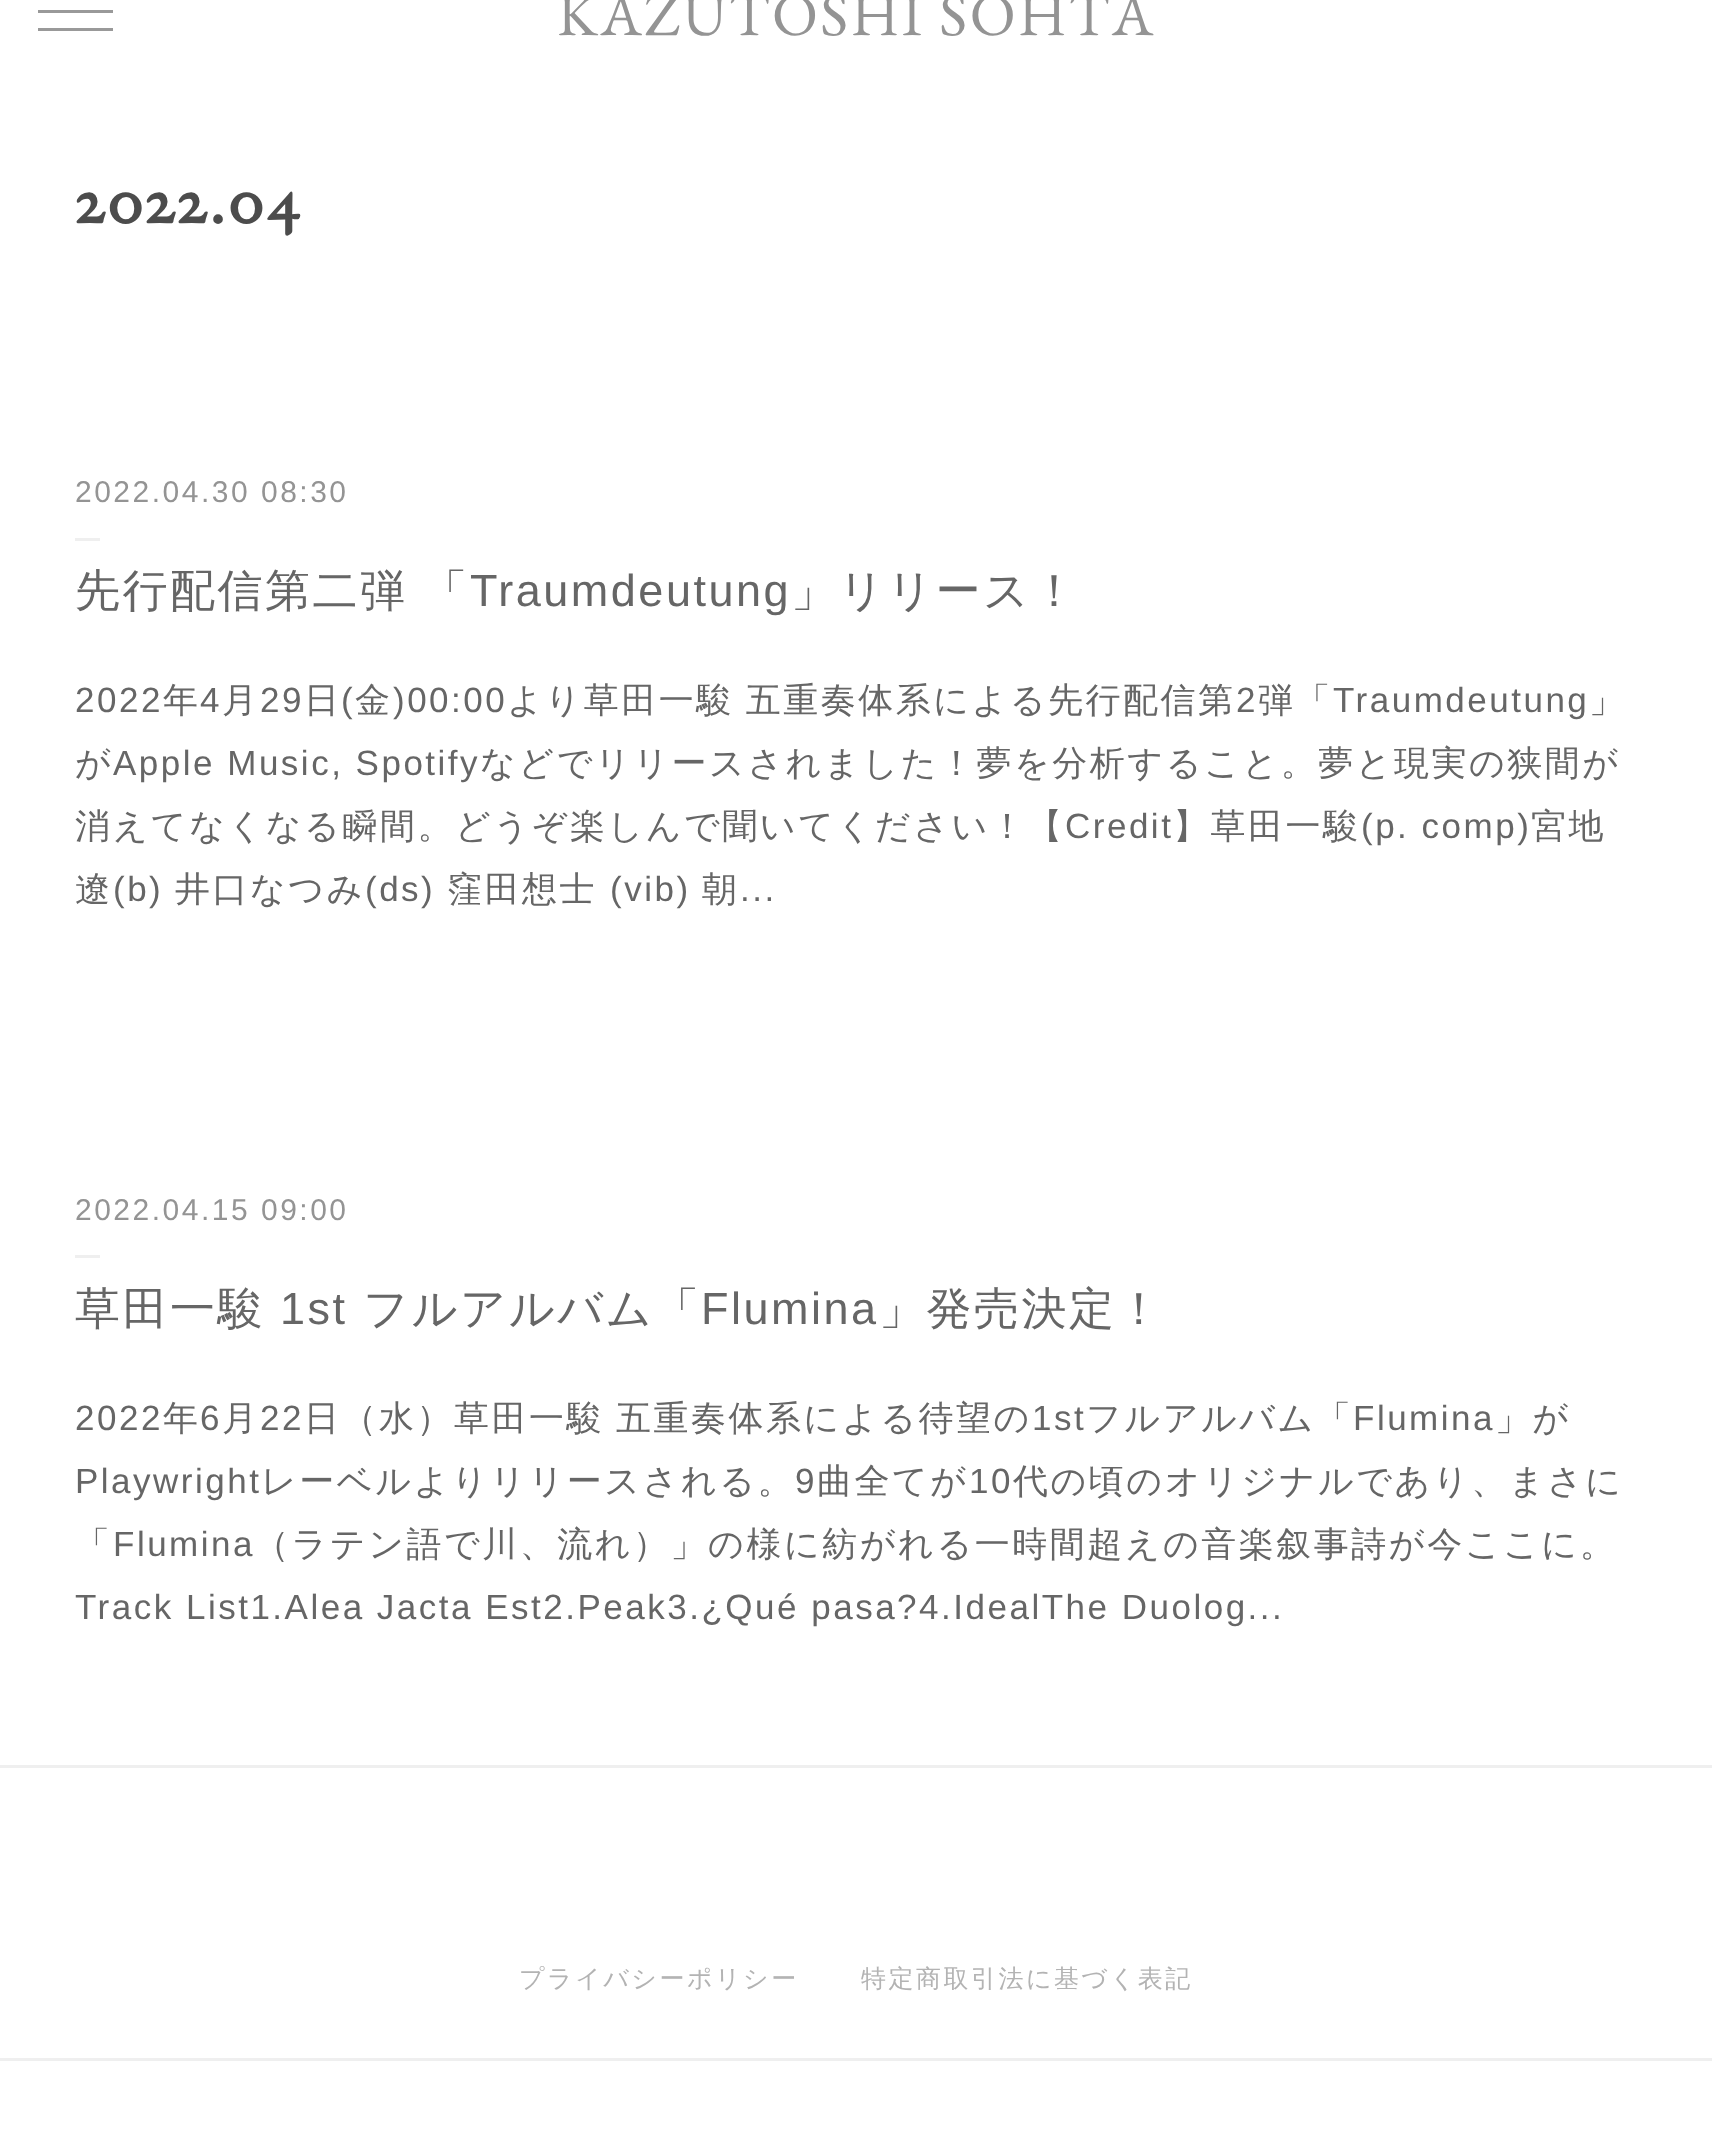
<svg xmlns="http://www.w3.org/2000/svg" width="1712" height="2138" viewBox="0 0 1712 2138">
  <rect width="100%" height="100%" fill="rgb(255,255,255)"/>
  <rect x="38" y="10" width="75" height="3" fill="rgb(153,153,153)"/>
  <rect x="38" y="28" width="75" height="3" fill="rgb(153,153,153)"/>
  <text x="557" y="35" font-family="EB Garamond" font-size="60" letter-spacing="2.5" fill="rgb(148,148,148)">KAZUTOSHI SOHTA</text>
  <text x="75" y="223" font-family="EB Garamond" font-size="70" font-weight="bold" letter-spacing="2.5" fill="rgb(76,76,76)">2022.04</text>
  <rect x="0" y="1765" width="1712" height="3" fill="rgb(239,239,239)"/>
  <text x="75" y="502" font-family="Liberation Sans" font-size="30" letter-spacing="2.5" fill="rgb(148,148,148)">2022.04.30 08:30</text>
  <rect x="75" y="538" width="25" height="3" fill="rgb(239,239,239)"/>
  <text x="75" y="606" word-spacing="-1" font-family="WenQuanYi Zen Hei" font-size="45" font-weight="500" letter-spacing="2.5" fill="rgb(102,102,102)">先行配信第二弾 「</text>
  <text x="470" y="606" font-family="Liberation Sans" font-size="45" letter-spacing="2.5" fill="rgb(102,102,102)">Traumdeutung</text>
  <text x="791" y="606" font-family="WenQuanYi Zen Hei" font-size="45" font-weight="500" letter-spacing="2.5" fill="rgb(102,102,102)">」リリース！</text>
  <text x="75" y="712" font-family="Liberation Sans" font-size="35" letter-spacing="2.5" fill="rgb(102,102,102)">2022</text>
  <text x="163" y="712" font-family="WenQuanYi Zen Hei" font-size="35" font-weight="500" letter-spacing="2.5" fill="rgb(102,102,102)">年</text>
  <text x="200" y="712" font-family="Liberation Sans" font-size="35" letter-spacing="2.5" fill="rgb(102,102,102)">4</text>
  <text x="222" y="712" font-family="WenQuanYi Zen Hei" font-size="35" font-weight="500" letter-spacing="2.5" fill="rgb(102,102,102)">月</text>
  <text x="260" y="712" font-family="Liberation Sans" font-size="35" letter-spacing="2.5" fill="rgb(102,102,102)">29</text>
  <text x="304" y="712" font-family="WenQuanYi Zen Hei" font-size="35" font-weight="500" letter-spacing="2.5" fill="rgb(102,102,102)">日</text>
  <text x="341" y="712" font-family="Liberation Sans" font-size="35" letter-spacing="2.5" fill="rgb(102,102,102)">(</text>
  <text x="355" y="712" font-family="WenQuanYi Zen Hei" font-size="35" font-weight="500" letter-spacing="2.5" fill="rgb(102,102,102)">金</text>
  <text x="393" y="712" font-family="Liberation Sans" font-size="35" letter-spacing="2.5" fill="rgb(102,102,102)">)00:00</text>
  <text x="507" y="712" word-spacing="-1" font-family="WenQuanYi Zen Hei" font-size="35" font-weight="500" letter-spacing="2.5" fill="rgb(102,102,102)">より草田一駿 五重奏体系による先行配信第</text>
  <text x="1236" y="712" font-family="Liberation Sans" font-size="35" letter-spacing="2.5" fill="rgb(102,102,102)">2</text>
  <text x="1258" y="712" font-family="WenQuanYi Zen Hei" font-size="35" font-weight="500" letter-spacing="2.5" fill="rgb(102,102,102)">弾「</text>
  <text x="1333" y="712" font-family="Liberation Sans" font-size="35" letter-spacing="2.5" fill="rgb(102,102,102)">Traumdeutung</text>
  <g font-family="WenQuanYi Zen Hei" font-size="35" font-weight="500" letter-spacing="2.5" fill="rgb(102,102,102)">
    <text x="1589" y="712">」</text>
    <text x="75" y="775">が</text>
  </g>
  <text x="113" y="775" font-family="Liberation Sans" font-size="35" letter-spacing="2.5" fill="rgb(102,102,102)">Apple Music, Spotify</text>
  <g font-family="WenQuanYi Zen Hei" font-size="35" font-weight="500" letter-spacing="2.5" fill="rgb(102,102,102)">
    <text x="480" y="775">などでリリースされました！夢を分析すること。夢と現実の狭間が</text>
    <text x="75" y="838">消えてなくなる瞬間。どうぞ楽しんで聞いてください！【</text>
  </g>
  <text x="1065" y="838" font-family="Liberation Sans" font-size="35" letter-spacing="2.5" fill="rgb(102,102,102)">Credit</text>
  <text x="1173" y="838" font-family="WenQuanYi Zen Hei" font-size="35" font-weight="500" letter-spacing="2.5" fill="rgb(102,102,102)">】草田一駿</text>
  <text x="1361" y="838" font-family="Liberation Sans" font-size="35" letter-spacing="2.5" fill="rgb(102,102,102)">(p. comp)</text>
  <g font-family="WenQuanYi Zen Hei" font-size="35" font-weight="500" letter-spacing="2.5" fill="rgb(102,102,102)">
    <text x="1531" y="838">宮地</text>
    <text x="75" y="901">遼</text>
  </g>
  <text x="113" y="901" font-family="Liberation Sans" font-size="35" letter-spacing="2.5" fill="rgb(102,102,102)">(b)</text>
  <text x="175" y="901" font-family="WenQuanYi Zen Hei" font-size="35" font-weight="500" letter-spacing="2.5" fill="rgb(102,102,102)">井口なつみ</text>
  <text x="365" y="901" font-family="Liberation Sans" font-size="35" letter-spacing="2.5" fill="rgb(102,102,102)">(ds)</text>
  <text x="447" y="901" font-family="WenQuanYi Zen Hei" font-size="35" font-weight="500" letter-spacing="2.5" fill="rgb(102,102,102)">窪田想士</text>
  <text x="610" y="901" font-family="Liberation Sans" font-size="35" letter-spacing="2.5" fill="rgb(102,102,102)">(vib)</text>
  <text x="702" y="901" font-family="WenQuanYi Zen Hei" font-size="35" font-weight="500" letter-spacing="2.5" fill="rgb(102,102,102)">朝</text>
  <text x="740" y="901" font-family="Liberation Sans" font-size="35" letter-spacing="2.5" fill="rgb(102,102,102)">...</text>
  <text x="75" y="1220" font-family="Liberation Sans" font-size="30" letter-spacing="2.5" fill="rgb(148,148,148)">2022.04.15 09:00</text>
  <rect x="75" y="1255" width="25" height="3" fill="rgb(239,239,239)"/>
  <text x="75" y="1324" font-family="WenQuanYi Zen Hei" font-size="45" font-weight="500" letter-spacing="2.5" fill="rgb(102,102,102)">草田一駿</text>
  <text x="280" y="1324" font-family="Liberation Sans" font-size="45" letter-spacing="2.5" fill="rgb(102,102,102)">1st</text>
  <text x="363" y="1324" font-family="WenQuanYi Zen Hei" font-size="45" font-weight="500" letter-spacing="2.5" fill="rgb(102,102,102)">フルアルバム「</text>
  <text x="701" y="1324" font-family="Liberation Sans" font-size="45" letter-spacing="2.5" fill="rgb(102,102,102)">Flumina</text>
  <text x="879" y="1324" font-family="WenQuanYi Zen Hei" font-size="45" font-weight="500" letter-spacing="2.5" fill="rgb(102,102,102)">」発売決定！</text>
  <text x="75" y="1430" font-family="Liberation Sans" font-size="35" letter-spacing="2.5" fill="rgb(102,102,102)">2022</text>
  <text x="163" y="1430" font-family="WenQuanYi Zen Hei" font-size="35" font-weight="500" letter-spacing="2.5" fill="rgb(102,102,102)">年</text>
  <text x="200" y="1430" font-family="Liberation Sans" font-size="35" letter-spacing="2.5" fill="rgb(102,102,102)">6</text>
  <text x="222" y="1430" font-family="WenQuanYi Zen Hei" font-size="35" font-weight="500" letter-spacing="2.5" fill="rgb(102,102,102)">月</text>
  <text x="260" y="1430" font-family="Liberation Sans" font-size="35" letter-spacing="2.5" fill="rgb(102,102,102)">22</text>
  <text x="304" y="1430" word-spacing="-1" font-family="WenQuanYi Zen Hei" font-size="35" font-weight="500" letter-spacing="2.5" fill="rgb(102,102,102)">日（水）草田一駿 五重奏体系による待望の</text>
  <text x="1032" y="1430" font-family="Liberation Sans" font-size="35" letter-spacing="2.5" fill="rgb(102,102,102)">1st</text>
  <text x="1086" y="1430" font-family="WenQuanYi Zen Hei" font-size="35" font-weight="500" letter-spacing="2.5" fill="rgb(102,102,102)">フルアルバム「</text>
  <text x="1353" y="1430" font-family="Liberation Sans" font-size="35" letter-spacing="2.5" fill="rgb(102,102,102)">Flumina</text>
  <text x="1495" y="1430" font-family="WenQuanYi Zen Hei" font-size="35" font-weight="500" letter-spacing="2.5" fill="rgb(102,102,102)">」が</text>
  <text x="75" y="1493" font-family="Liberation Sans" font-size="35" letter-spacing="2.5" fill="rgb(102,102,102)">Playwright</text>
  <text x="261" y="1493" font-family="WenQuanYi Zen Hei" font-size="35" font-weight="500" letter-spacing="2.5" fill="rgb(102,102,102)">レーベルよりリリースされる。</text>
  <text x="795" y="1493" font-family="Liberation Sans" font-size="35" letter-spacing="2.5" fill="rgb(102,102,102)">9</text>
  <text x="817" y="1493" font-family="WenQuanYi Zen Hei" font-size="35" font-weight="500" letter-spacing="2.5" fill="rgb(102,102,102)">曲全てが</text>
  <text x="969" y="1493" font-family="Liberation Sans" font-size="35" letter-spacing="2.5" fill="rgb(102,102,102)">10</text>
  <g font-family="WenQuanYi Zen Hei" font-size="35" font-weight="500" letter-spacing="2.5" fill="rgb(102,102,102)">
    <text x="1013" y="1493">代の頃のオリジナルであり、まさに</text>
    <text x="75" y="1556">「</text>
  </g>
  <text x="113" y="1556" font-family="Liberation Sans" font-size="35" letter-spacing="2.5" fill="rgb(102,102,102)">Flumina</text>
  <text x="254" y="1556" font-family="WenQuanYi Zen Hei" font-size="35" font-weight="500" letter-spacing="2.5" fill="rgb(102,102,102)">（ラテン語で川、流れ）」の様に紡がれる一時間超えの音楽叙事詩が今ここに。</text>
  <text x="75" y="1619" font-family="Liberation Sans" font-size="35" letter-spacing="2.5" fill="rgb(102,102,102)">Track List1.Alea Jacta Est2.Peak3.¿Qué pasa?4.IdealThe Duolog...</text>
  <g font-family="WenQuanYi Zen Hei" font-size="25" font-weight="500" letter-spacing="2.5" fill="rgb(179,179,179)">
    <text x="519" y="1987">プライバシーポリシー</text>
    <text x="861" y="1987">特定商取引法に基づく表記</text>
  </g>
  <rect x="0" y="2058" width="1712" height="3" fill="rgb(239,239,239)"/>
</svg>
